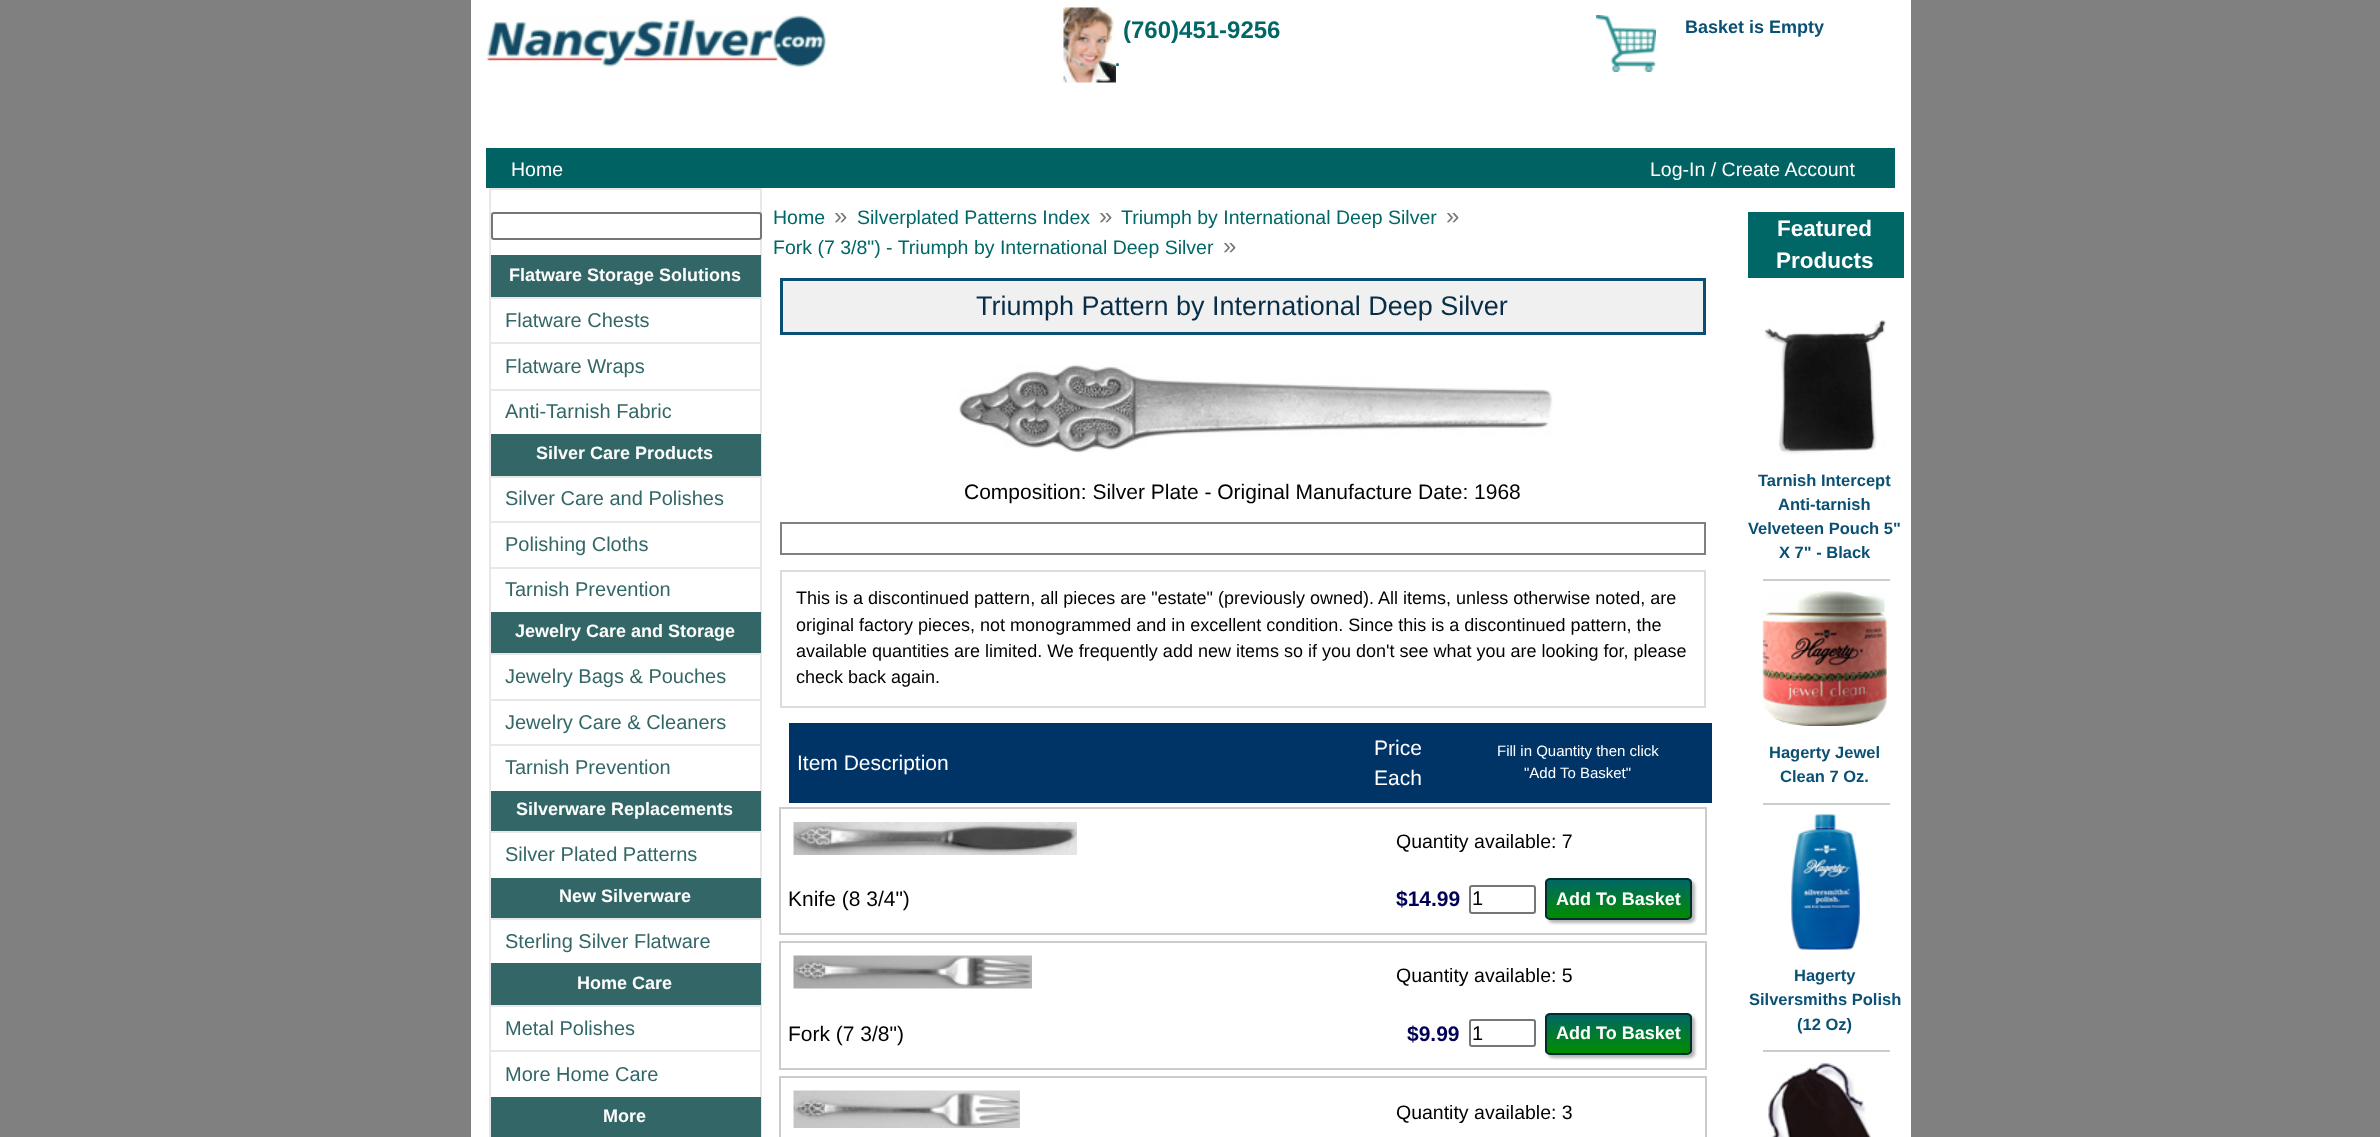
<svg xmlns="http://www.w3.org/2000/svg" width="2380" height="1137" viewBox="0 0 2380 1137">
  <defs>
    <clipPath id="clip1"><rect x="1545" y="878" width="147" height="42" rx="5"/></clipPath>
    <linearGradient id="g1" gradientUnits="userSpaceOnUse" x1="1619" y1="879" x2="1619" y2="918"><stop offset="0" stop-color="rgb(0,102,102)"/><stop offset="1" stop-color="rgb(0,140,0)"/></linearGradient>
    <clipPath id="clip2"><rect x="1545" y="1013" width="147" height="42" rx="5"/></clipPath>
    <linearGradient id="g2" gradientUnits="userSpaceOnUse" x1="1619" y1="1014" x2="1619" y2="1053"><stop offset="0" stop-color="rgb(0,102,102)"/><stop offset="1" stop-color="rgb(0,140,0)"/></linearGradient>
  </defs>
  <rect width="100%" height="100%" fill="rgb(128,128,128)"/>
  <rect x="471" y="0" width="1440" height="1137" fill="rgb(255,255,255)"/>
  <image x="487" y="15" width="340" height="53" href="pic1.png"/>
  <image x="1063" y="7" width="53" height="76" href="pic2.png"/>
  <text x="1123" y="38" font-family="Liberation Sans" font-size="24" font-weight="bold" fill="rgb(0,102,102)">(760)451-9256</text>
  <text x="1115" y="66" font-family="Liberation Sans" font-size="18" font-weight="bold" fill="rgb(0,102,102)">.</text>
  <image x="1596" y="15" width="60" height="57" href="pic3.png"/>
  <text x="1685" y="33" font-family="Liberation Sans" font-size="18" font-weight="bold" fill="rgb(10,80,116)">Basket is Empty</text>
  <rect x="486" y="148" width="1409" height="40" fill="rgb(0,98,99)"/>
  <g font-family="Liberation Sans" font-size="19.5" fill="rgb(255,255,255)">
    <text x="511" y="176">Home</text>
    <text x="1650" y="176">Log-In / Create Account</text>
  </g>
  <rect x="490" y="189" width="271" height="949" fill="none" stroke="rgb(232,232,232)" stroke-width="2"/>
  <rect x="492" y="213" width="269" height="26" rx="2" fill="rgb(255,255,255)" stroke="rgb(118,118,118)" stroke-width="2"/>
  <rect x="491" y="255" width="270" height="42" fill="rgb(51,102,102)"/>
  <text x="509" y="281" font-family="Liberation Sans" font-size="18" font-weight="bold" fill="rgb(255,255,255)">Flatware Storage Solutions</text>
  <rect x="491" y="297" width="270" height="2" fill="rgb(232,232,232)"/>
  <text x="505" y="327" font-family="Liberation Sans" font-size="20" fill="rgb(51,102,102)">Flatware Chests</text>
  <rect x="491" y="342" width="270" height="2" fill="rgb(232,232,232)"/>
  <text x="505" y="373" font-family="Liberation Sans" font-size="20" fill="rgb(51,102,102)">Flatware Wraps</text>
  <rect x="491" y="389" width="270" height="2" fill="rgb(232,232,232)"/>
  <text x="505" y="418" font-family="Liberation Sans" font-size="20" fill="rgb(51,102,102)">Anti-Tarnish Fabric</text>
  <rect x="491" y="434" width="270" height="42" fill="rgb(51,102,102)"/>
  <text x="536" y="459" font-family="Liberation Sans" font-size="18" font-weight="bold" fill="rgb(255,255,255)">Silver Care Products</text>
  <rect x="491" y="476" width="270" height="2" fill="rgb(232,232,232)"/>
  <text x="505" y="505" font-family="Liberation Sans" font-size="20" fill="rgb(51,102,102)">Silver Care and Polishes</text>
  <rect x="491" y="521" width="270" height="2" fill="rgb(232,232,232)"/>
  <text x="505" y="551" font-family="Liberation Sans" font-size="20" fill="rgb(51,102,102)">Polishing Cloths</text>
  <rect x="491" y="567" width="270" height="2" fill="rgb(232,232,232)"/>
  <text x="505" y="596" font-family="Liberation Sans" font-size="20" fill="rgb(51,102,102)">Tarnish Prevention</text>
  <rect x="491" y="612" width="270" height="41" fill="rgb(51,102,102)"/>
  <text x="515" y="637" font-family="Liberation Sans" font-size="18" font-weight="bold" fill="rgb(255,255,255)">Jewelry Care and Storage</text>
  <rect x="491" y="653" width="270" height="2" fill="rgb(232,232,232)"/>
  <text x="505" y="683" font-family="Liberation Sans" font-size="20" fill="rgb(51,102,102)">Jewelry Bags &amp; Pouches</text>
  <rect x="491" y="699" width="270" height="2" fill="rgb(232,232,232)"/>
  <text x="505" y="729" font-family="Liberation Sans" font-size="20" fill="rgb(51,102,102)">Jewelry Care &amp; Cleaners</text>
  <rect x="491" y="744" width="270" height="2" fill="rgb(232,232,232)"/>
  <text x="505" y="774" font-family="Liberation Sans" font-size="20" fill="rgb(51,102,102)">Tarnish Prevention</text>
  <rect x="491" y="791" width="270" height="40" fill="rgb(51,102,102)"/>
  <text x="516" y="815" font-family="Liberation Sans" font-size="18" font-weight="bold" fill="rgb(255,255,255)">Silverware Replacements</text>
  <rect x="491" y="831" width="270" height="2" fill="rgb(232,232,232)"/>
  <text x="505" y="861" font-family="Liberation Sans" font-size="20" fill="rgb(51,102,102)">Silver Plated Patterns</text>
  <rect x="491" y="878" width="270" height="40" fill="rgb(51,102,102)"/>
  <text x="559" y="902" font-family="Liberation Sans" font-size="18" font-weight="bold" fill="rgb(255,255,255)">New Silverware</text>
  <rect x="491" y="918" width="270" height="2" fill="rgb(232,232,232)"/>
  <text x="505" y="948" font-family="Liberation Sans" font-size="20" fill="rgb(51,102,102)">Sterling Silver Flatware</text>
  <rect x="491" y="963" width="270" height="42" fill="rgb(51,102,102)"/>
  <text x="577" y="989" font-family="Liberation Sans" font-size="18" font-weight="bold" fill="rgb(255,255,255)">Home Care</text>
  <rect x="491" y="1005" width="270" height="2" fill="rgb(232,232,232)"/>
  <text x="505" y="1035" font-family="Liberation Sans" font-size="20" fill="rgb(51,102,102)">Metal Polishes</text>
  <rect x="491" y="1050" width="270" height="2" fill="rgb(232,232,232)"/>
  <text x="505" y="1081" font-family="Liberation Sans" font-size="20" fill="rgb(51,102,102)">More Home Care</text>
  <rect x="491" y="1097" width="270" height="40" fill="rgb(51,102,102)"/>
  <text x="603" y="1122" font-family="Liberation Sans" font-size="18" font-weight="bold" fill="rgb(255,255,255)">More</text>
  <text x="773" y="224" font-family="Liberation Sans" font-size="19.5" fill="rgb(0,102,102)">Home</text>
  <text x="834" y="224" font-family="Liberation Sans" font-size="24" fill="rgb(119,119,119)">»</text>
  <text x="857" y="224" font-family="Liberation Sans" font-size="19.5" fill="rgb(0,102,102)">Silverplated Patterns Index</text>
  <text x="1099" y="224" font-family="Liberation Sans" font-size="24" fill="rgb(119,119,119)">»</text>
  <text x="1121" y="224" font-family="Liberation Sans" font-size="19.5" fill="rgb(0,102,102)">Triumph by International Deep Silver</text>
  <text x="1446" y="224" font-family="Liberation Sans" font-size="24" fill="rgb(119,119,119)">»</text>
  <text x="773" y="254" font-family="Liberation Sans" font-size="19.5" fill="rgb(0,102,102)">Fork (7 3/8") - Triumph by International Deep Silver</text>
  <text x="1223" y="254" font-family="Liberation Sans" font-size="24" fill="rgb(119,119,119)">»</text>
  <rect x="781.5" y="279.5" width="923" height="54" fill="rgb(240,240,240)" stroke="rgb(10,80,116)" stroke-width="3"/>
  <text x="976" y="315" font-family="Liberation Sans" font-size="27" fill="rgb(8,45,71)">Triumph Pattern by International Deep Silver</text>
  <image x="958" y="364" width="595" height="89" href="pic4.png"/>
  <text x="964" y="499" font-family="Liberation Sans" font-size="21" fill="rgb(0,0,0)">Composition: Silver Plate - Original Manufacture Date: 1968</text>
  <rect x="781" y="523" width="924" height="31" fill="none" stroke="rgb(128,128,128)" stroke-width="2"/>
  <rect x="781" y="571" width="924" height="136" fill="none" stroke="rgb(220,220,220)" stroke-width="2"/>
  <g font-family="Liberation Sans" font-size="18" fill="rgb(0,0,0)">
    <text>
      <tspan x="796" y="604">This is a discontinued pattern, all pieces are "estate" (previously owned). All items, unless otherwise noted, are</tspan>
      <tspan x="796" y="631">original factory pieces, not monogrammed and in excellent condition. Since this is a discontinued pattern, the</tspan>
      <tspan x="796" y="657">available quantities are limited. We frequently add new items so if you don't see what you are looking for, please</tspan>
      <tspan x="796" y="683">check back again.</tspan>
    </text>
  </g>
  <rect x="789" y="723" width="923" height="80" fill="rgb(0,51,102)"/>
  <g font-family="Liberation Sans" font-size="21" fill="rgb(255,255,255)">
    <text x="797" y="770">Item Description</text>
    <text>
      <tspan x="1374" y="755">Price</tspan>
      <tspan x="1374" y="785">Each</tspan>
    </text>
  </g>
  <g font-family="Liberation Sans" font-size="15" fill="rgb(255,255,255)">
    <text x="1497" y="756">Fill in Quantity then click</text>
    <text x="1524" y="778">"Add To Basket"</text>
  </g>
  <rect x="780" y="808" width="926" height="126" fill="none" stroke="rgb(204,204,204)" stroke-width="2"/>
  <image x="793" y="822" width="284" height="33" href="pic5.png"/>
  <text x="1396" y="848" font-family="Liberation Sans" font-size="19.5" fill="rgb(0,0,0)">Quantity available: 7</text>
  <text x="788" y="906" font-family="Liberation Sans" font-size="21" fill="rgb(0,0,0)">Knife (8 3/4")</text>
  <text x="1396" y="906" font-family="Liberation Sans" font-size="21" font-weight="bold" fill="rgb(0,0,86)">$14.99</text>
  <rect x="1470" y="886" width="65" height="27" rx="2" fill="none" stroke="rgb(118,118,118)" stroke-width="2"/>
  <text x="1472" y="905" font-family="Liberation Sans" font-size="20" fill="rgb(0,0,0)">1</text>
  <rect x="1548" y="881" width="147" height="42" rx="5" fill="rgb(180,181,181)" filter="blur(1.5px)"/>
  <g clip-path="url(#clip1)">
    <rect x="1545" y="879" width="147" height="39" fill="url(#g1)"/>
  </g>
  <rect x="1546" y="879" width="145" height="40" rx="4" fill="none" stroke="rgb(0,46,46)" stroke-width="2"/>
  <text x="1556" y="905" font-family="Liberation Sans" font-size="18" font-weight="bold" fill="rgb(255,255,255)">Add To Basket</text>
  <rect x="780" y="942" width="926" height="127" fill="none" stroke="rgb(204,204,204)" stroke-width="2"/>
  <image x="793" y="955" width="239" height="34" href="pic6.png"/>
  <text x="1396" y="982" font-family="Liberation Sans" font-size="19.5" fill="rgb(0,0,0)">Quantity available: 5</text>
  <text x="788" y="1041" font-family="Liberation Sans" font-size="21" fill="rgb(0,0,0)">Fork (7 3/8")</text>
  <text x="1407" y="1041" font-family="Liberation Sans" font-size="21" font-weight="bold" fill="rgb(0,0,86)">$9.99</text>
  <rect x="1470" y="1020" width="65" height="26" rx="2" fill="none" stroke="rgb(118,118,118)" stroke-width="2"/>
  <text x="1472" y="1040" font-family="Liberation Sans" font-size="20" fill="rgb(0,0,0)">1</text>
  <rect x="1548" y="1016" width="147" height="42" rx="5" fill="rgb(180,181,181)" filter="blur(1.5px)"/>
  <g clip-path="url(#clip2)">
    <rect x="1545" y="1014" width="147" height="39" fill="url(#g2)"/>
  </g>
  <rect x="1546" y="1014" width="145" height="40" rx="4" fill="none" stroke="rgb(0,46,46)" stroke-width="2"/>
  <text x="1556" y="1039" font-family="Liberation Sans" font-size="18" font-weight="bold" fill="rgb(255,255,255)">Add To Basket</text>
  <rect x="780" y="1077" width="926" height="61" fill="none" stroke="rgb(204,204,204)" stroke-width="2"/>
  <image x="793" y="1090" width="227" height="38" href="pic7.png"/>
  <text x="1396" y="1119" font-family="Liberation Sans" font-size="19.5" fill="rgb(0,0,0)">Quantity available: 3</text>
  <rect x="1748" y="212" width="156" height="66" fill="rgb(0,102,102)"/>
  <g font-family="Liberation Sans" font-size="22.5" font-weight="bold" fill="rgb(255,255,255)">
    <text x="1777" y="236">Featured</text>
    <text x="1776" y="268">Products</text>
  </g>
  <image x="1764" y="320" width="122" height="135" href="pic8.png"/>
  <g font-family="Liberation Sans" font-size="16.5" font-weight="bold" fill="rgb(10,80,116)">
    <text x="1758" y="486">Tarnish Intercept</text>
    <text x="1778" y="510">Anti-tarnish</text>
    <text x="1748" y="534">Velveteen Pouch 5"</text>
    <text x="1779" y="558">X 7" - Black</text>
  </g>
  <rect x="1763" y="579" width="127" height="2" fill="rgb(204,204,204)"/>
  <image x="1762" y="591" width="125" height="135" href="pic9.png"/>
  <g font-family="Liberation Sans" font-size="16.5" font-weight="bold" fill="rgb(10,80,116)">
    <text x="1769" y="758">Hagerty Jewel</text>
    <text x="1780" y="782">Clean 7 Oz.</text>
  </g>
  <rect x="1763" y="803" width="127" height="2" fill="rgb(204,204,204)"/>
  <image x="1791" y="814" width="70" height="136" href="pic10.png"/>
  <g font-family="Liberation Sans" font-size="16.5" font-weight="bold" fill="rgb(10,80,116)">
    <text x="1794" y="981">Hagerty</text>
    <text x="1749" y="1005">Silversmiths Polish</text>
    <text x="1797" y="1030">(12 Oz)</text>
  </g>
  <rect x="1763" y="1050" width="127" height="2" fill="rgb(204,204,204)"/>
  <image x="1768" y="1062" width="103" height="75" href="pic11.png"/>
</svg>
